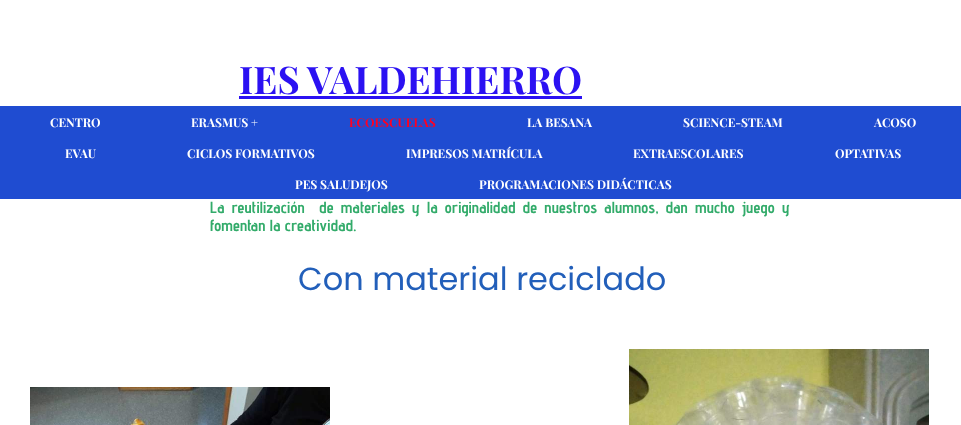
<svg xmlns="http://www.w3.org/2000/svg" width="961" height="425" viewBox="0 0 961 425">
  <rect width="100%" height="100%" fill="rgb(255,255,255)"/>
  <text x="239" y="94" font-family="Playfair Display" font-size="38" font-weight="bold" fill="rgb(43,17,242)">IES VALDEHIERRO</text>
  <rect x="239" y="96" width="343" height="3" fill="rgb(43,17,242)"/>
  <rect x="0" y="106" width="961" height="93" fill="rgb(31,76,209)"/>
  <g font-family="Playfair Display" font-size="12" font-weight="bold" fill="rgb(255,255,255)">
    <text x="50" y="127">CENTRO</text>
    <text x="191" y="127">ERASMUS +</text>
  </g>
  <text x="349" y="127" font-family="Playfair Display" font-size="12" font-weight="bold" fill="rgb(255,0,34)">ECOESCUELAS</text>
  <g font-family="Playfair Display" font-size="12" font-weight="bold" fill="rgb(255,255,255)">
    <text x="527" y="127">LA BESANA</text>
    <text x="683" y="127">SCIENCE-STEAM</text>
    <text x="874" y="127">ACOSO</text>
    <text x="65" y="158">EVAU</text>
    <text x="187" y="158">CICLOS FORMATIVOS</text>
    <text x="406" y="158">IMPRESOS MATRÍCULA</text>
    <text x="633" y="158">EXTRAESCOLARES</text>
    <text x="835" y="158">OPTATIVAS</text>
    <text x="295" y="189">PES SALUDEJOS</text>
    <text x="479" y="189">PROGRAMACIONES DIDÁCTICAS</text>
  </g>
  <g font-family="Advent Pro" font-size="16" font-weight="bold" fill="rgb(50,171,106)">
    <text xml:space="preserve"><tspan x="210" y="213" word-spacing="2.75">La reutilización  de materiales y la originalidad de nuestros alumnos, dan mucho juego y</tspan><tspan x="210" y="231">fomentan la creatividad.</tspan></text>
  </g>
  <text x="298" y="290" font-family="Poppins" font-size="32" fill="rgb(34,95,186)">Con material reciclado</text>
  <image x="30" y="387" width="300" height="38" href="pic1.png"/>
  <image x="629" y="349" width="300" height="76" href="pic2.png"/>
</svg>
